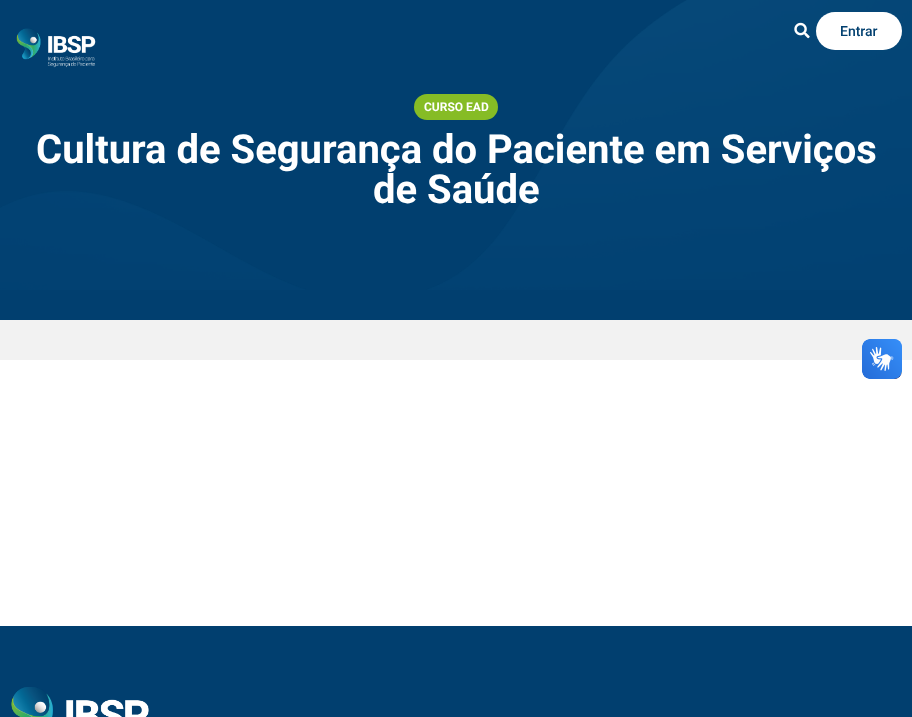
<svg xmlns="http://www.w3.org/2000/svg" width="912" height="717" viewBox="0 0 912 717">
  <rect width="100%" height="100%" fill="rgb(255,255,255)"/>
  <rect x="0" y="0" width="912" height="320" fill="rgb(1,63,111)"/>
  <image x="0" y="0" width="912" height="290" href="pic3.png"/>
  <image x="16" y="28" width="80" height="40" href="pic1.png"/>
  <image x="794" y="22" width="16" height="17" href="pic2.png"/>
  <rect x="816" y="12" width="86" height="38" rx="19" fill="rgb(255,255,255)"/>
  <text x="840" y="36" font-family="Roboto" font-size="14" font-weight="500" fill="rgb(1,63,111)">Entrar</text>
  <rect x="414" y="94" width="84" height="26" rx="13" fill="rgb(134,188,37)"/>
  <text x="424" y="111" font-family="Roboto" font-size="12" font-weight="bold" fill="rgb(255,255,255)">CURSO EAD</text>
  <g font-family="Roboto" font-size="40" font-weight="bold" fill="rgb(255,255,255)">
    <text x="36" y="163">Cultura de Segurança do Paciente em Serviços</text>
    <text x="373" y="203">de Saúde</text>
  </g>
  <rect x="0" y="320" width="912" height="40" fill="rgb(242,242,242)"/>
  <image x="862" y="339" width="40" height="40" href="pic4.png"/>
  <image x="862" y="339" width="40" height="40" href="pic5.png"/>
  <rect x="0" y="626" width="912" height="91" fill="rgb(1,63,111)"/>
  <image x="11" y="687" width="138" height="30" href="pic6.png"/>
</svg>
